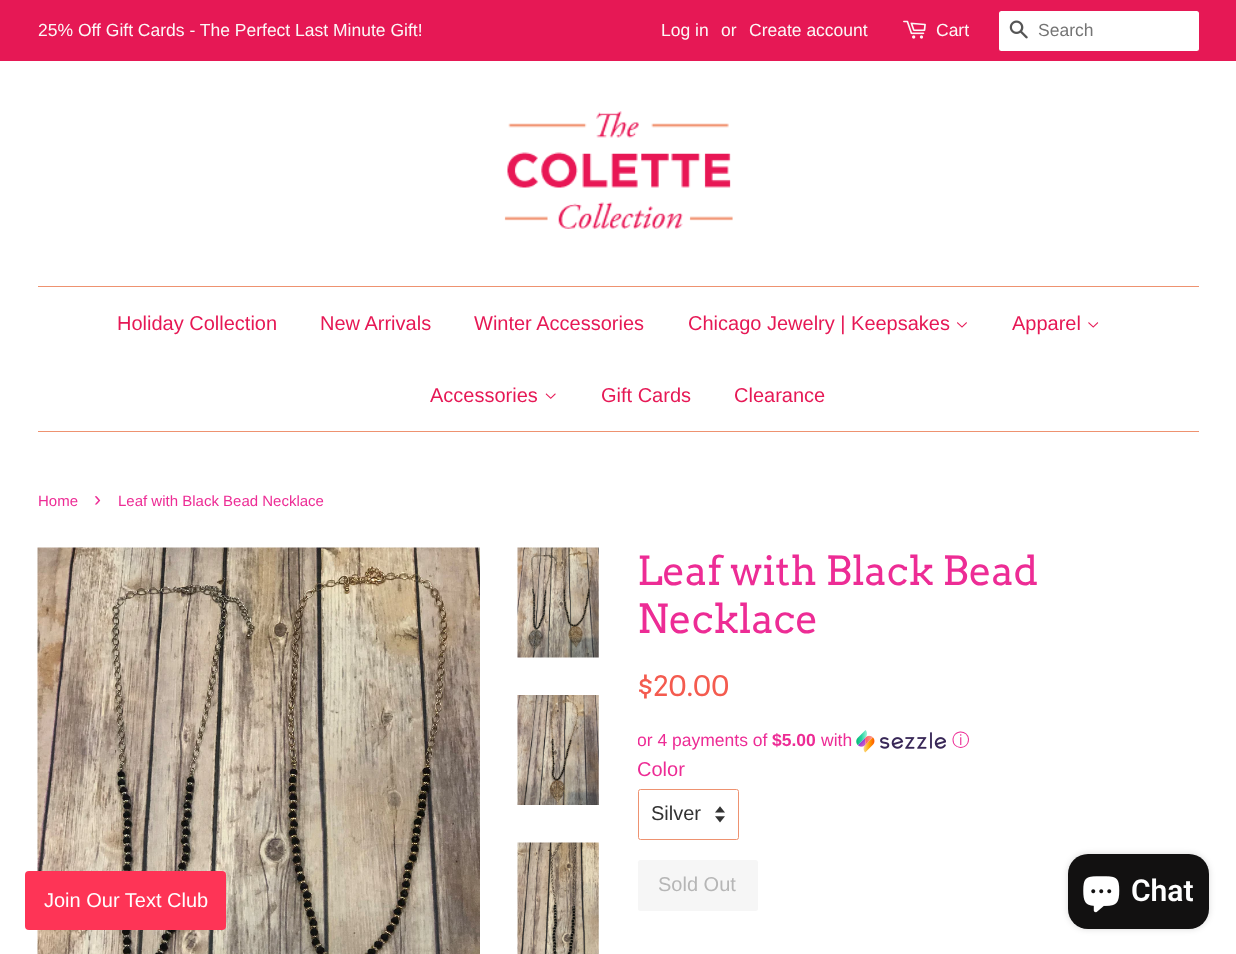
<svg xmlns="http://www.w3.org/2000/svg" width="1236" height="954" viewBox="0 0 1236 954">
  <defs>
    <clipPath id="clip1"><rect x="638" y="729" width="561" height="24"/></clipPath>
  </defs>
  <rect width="100%" height="100%" fill="rgb(255,255,255)"/>
  <rect x="0" y="0" width="1236" height="61" fill="rgb(230,24,85)"/>
  <g font-family="Liberation Sans" font-size="17.5" fill="rgb(252,248,247)">
    <text x="38" y="36">25% Off Gift Cards - The Perfect Last Minute Gift!</text>
    <text x="661" y="36">Log in</text>
    <text x="721" y="36">or</text>
    <text x="749" y="36">Create account</text>
  </g>
  <image x="903" y="20" width="23" height="19" href="pic1.png"/>
  <text x="936" y="36" font-family="Liberation Sans" font-size="17.5" fill="rgb(252,248,247)">Cart</text>
  <rect x="999" y="11" width="200" height="40" rx="2.5" fill="rgb(255,255,255)"/>
  <image x="1009" y="20" width="19" height="19" href="pic2.png"/>
  <text x="1038" y="36" font-family="Liberation Sans" font-size="17.5" fill="rgb(117,117,117)">Search</text>
  <image x="504" y="111" width="229" height="118" href="pic3.png"/>
  <rect x="38" y="286" width="1161" height="1" fill="rgb(238,146,112)"/>
  <rect x="38" y="431" width="1161" height="1" fill="rgb(238,146,112)"/>
  <g font-family="Liberation Sans" font-size="20" fill="rgb(230,24,85)">
    <text x="117" y="330">Holiday Collection</text>
    <text x="320" y="330">New Arrivals</text>
    <text x="474" y="330">Winter Accessories</text>
    <text x="688" y="330">Chicago Jewelry | Keepsakes</text>
  </g>
  <image x="957" y="322" width="10" height="6" href="pic4.png"/>
  <text x="1012" y="330" font-family="Liberation Sans" font-size="20" fill="rgb(230,24,85)">Apparel</text>
  <image x="1088" y="322" width="11" height="6" href="pic5.png"/>
  <text x="430" y="402" font-family="Liberation Sans" font-size="20" fill="rgb(230,24,85)">Accessories</text>
  <image x="545" y="393" width="11" height="6" href="pic6.png"/>
  <g font-family="Liberation Sans" font-size="20" fill="rgb(230,24,85)">
    <text x="601" y="402">Gift Cards</text>
    <text x="734" y="402">Clearance</text>
  </g>
  <text x="38" y="506" font-family="Liberation Sans" font-size="15" fill="rgb(237,44,149)">Home</text>
  <text x="94" y="506" font-family="Liberation Sans" font-size="21" fill="rgb(237,44,149)">›</text>
  <text x="118" y="506" font-family="Liberation Sans" font-size="15" fill="rgb(237,44,149)">Leaf with Black Bead Necklace</text>
  <image x="37" y="547" width="443" height="407" href="pic7.png"/>
  <image x="517" y="547" width="82" height="111" href="pic8.png"/>
  <image x="517" y="695" width="82" height="110" href="pic9.png"/>
  <image x="517" y="842" width="82" height="112" href="pic10.png"/>
  <g font-family="Arvo" font-size="40" fill="rgb(237,44,149)">
    <text>
      <tspan x="637" y="585">Leaf with Black Bead</tspan>
      <tspan x="637" y="633">Necklace</tspan>
    </text>
  </g>
  <text x="637" y="696" font-family="Arvo" font-size="28" fill="rgb(244,91,79)">$20.00</text>
  <g clip-path="url(#clip1)">
    <text x="637" y="746" font-family="Liberation Sans" font-size="17.5" fill="rgb(237,44,149)">or 4 payments of</text>
  </g>
  <text x="772" y="746" font-family="Liberation Sans" font-size="17.5" font-weight="bold" fill="rgb(237,44,149)">$5.00</text>
  <text x="821" y="746" font-family="Liberation Sans" font-size="17.5" fill="rgb(237,44,149)">with</text>
  <image x="856" y="730" width="90" height="23" href="pic11.png"/>
  <text x="952" y="746" font-family="WenQuanYi Zen Hei" font-size="17.5" font-weight="500" fill="rgb(237,44,149)">ⓘ</text>
  <text x="637" y="776" font-family="Liberation Sans" font-size="20" fill="rgb(237,44,149)">Color</text>
  <image x="715" y="806" width="10" height="17" href="pic12.png"/>
  <rect x="638.5" y="789.5" width="100" height="50" rx="2" fill="none" stroke="rgb(238,146,112)"/>
  <text x="651" y="820" font-family="Liberation Sans" font-size="20" fill="rgb(51,51,51)">Silver</text>
  <rect x="638" y="860" width="120" height="51" rx="2.5" fill="rgb(246,246,246)"/>
  <text x="658" y="891" font-family="Liberation Sans" font-size="20" fill="rgb(182,182,182)">Sold Out</text>
  <rect x="1068" y="854" width="141" height="75" rx="20" fill="rgba(0,0,0,0.15)" filter="blur(3px)"/>
  <rect x="1068" y="854" width="141" height="75" rx="20" fill="rgb(18,17,17)"/>
  <image x="1083" y="876" width="37" height="37" href="pic13.png"/>
  <text x="1131" y="901" font-family="Roboto" font-size="30" font-weight="600" fill="rgb(255,255,255)">Chat</text>
  <rect x="25" y="871" width="201" height="59" rx="4" fill="rgb(254,52,86)"/>
  <text x="44" y="907" font-family="Liberation Sans" font-size="20" fill="rgb(255,255,255)">Join Our Text Club</text>
</svg>
